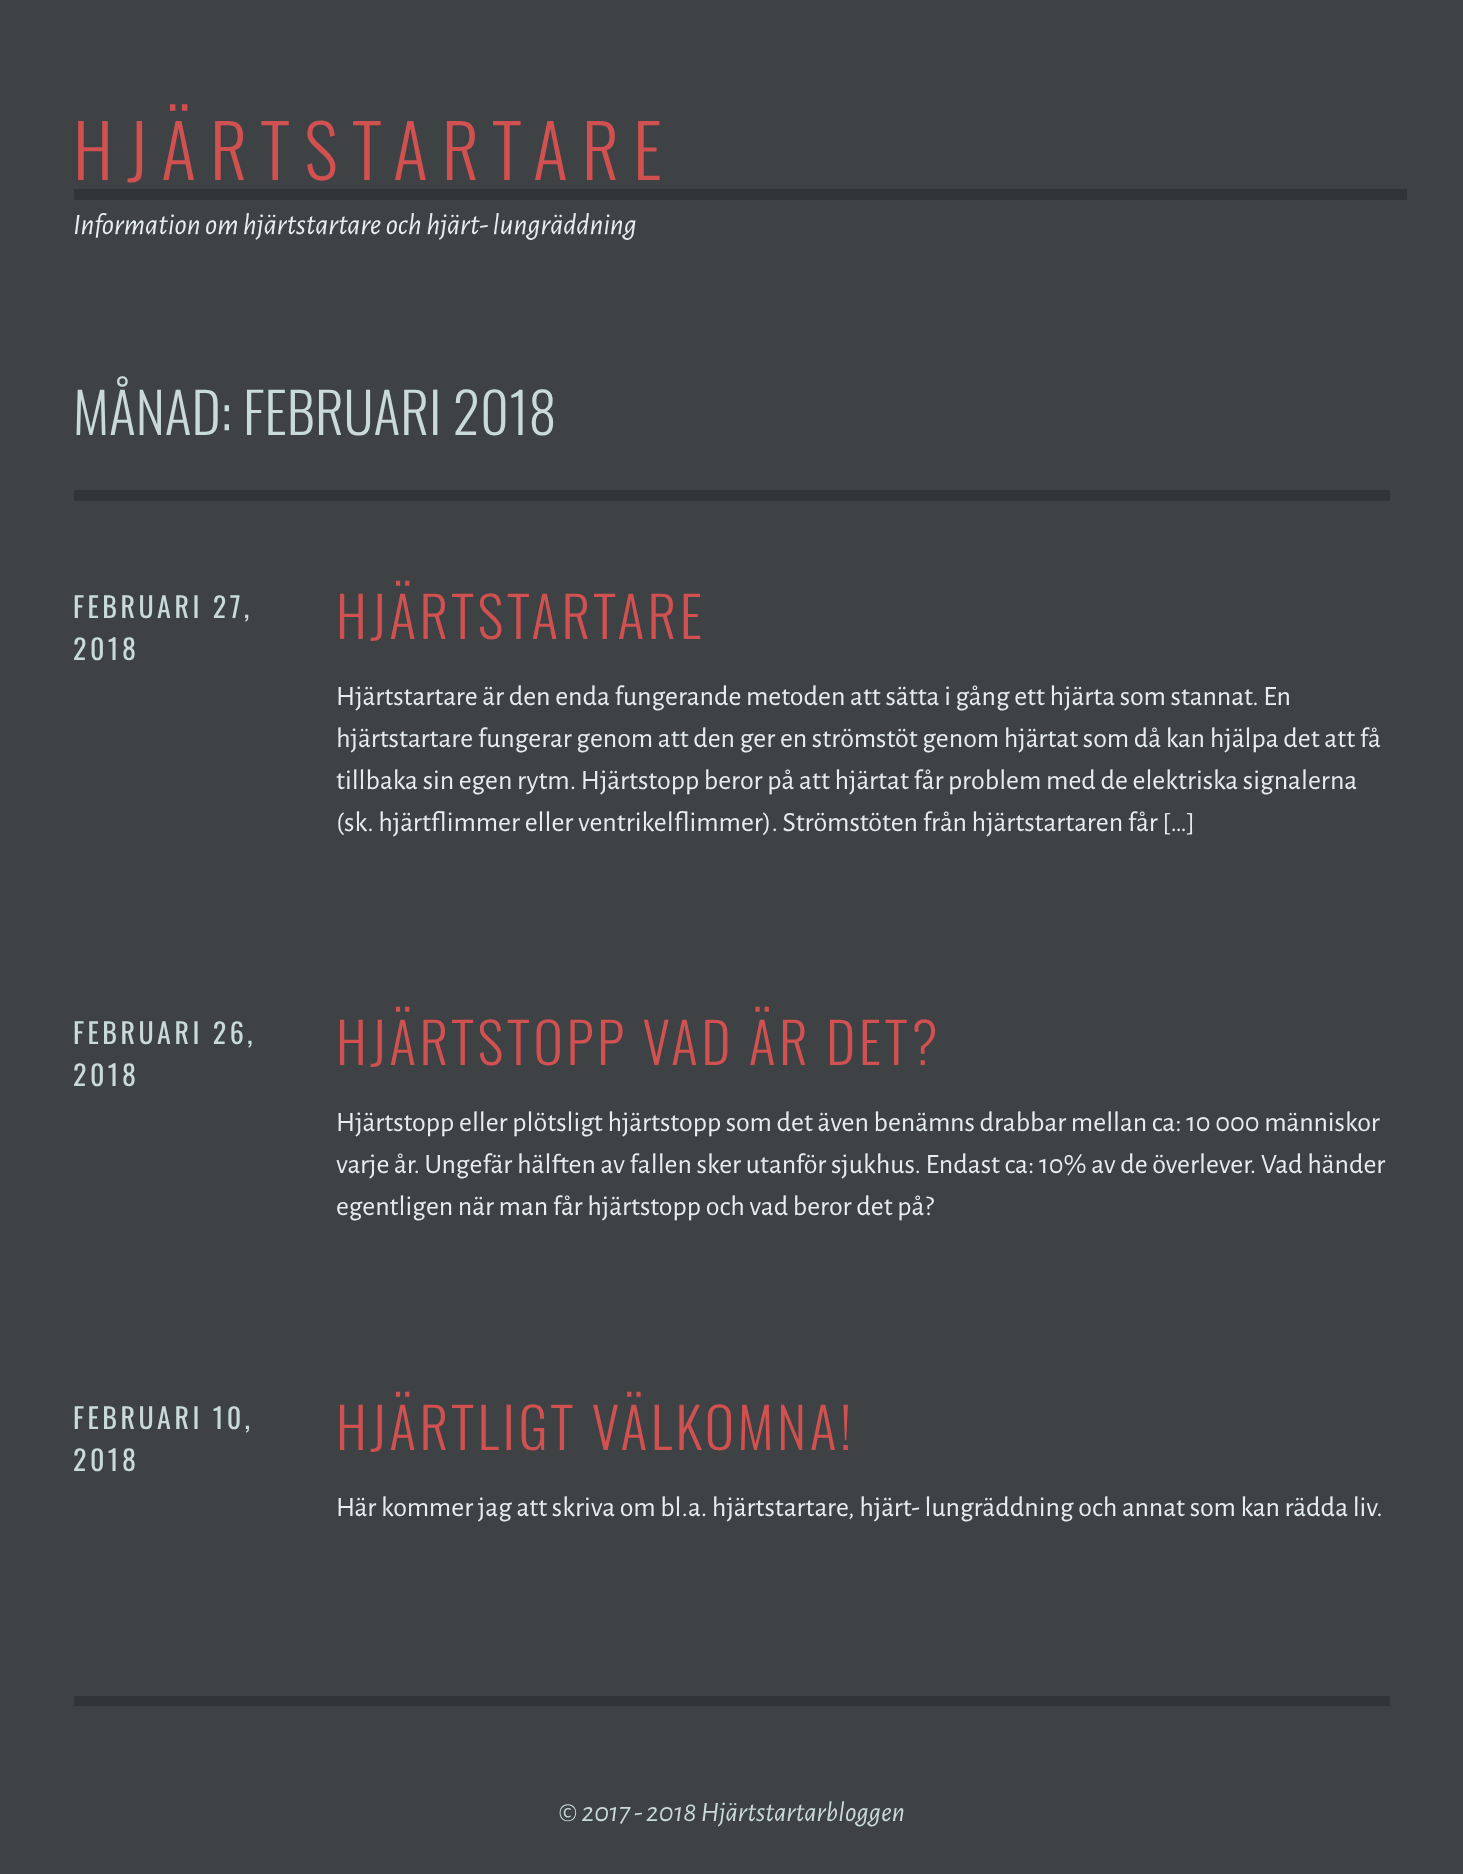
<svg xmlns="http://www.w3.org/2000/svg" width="1463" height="1874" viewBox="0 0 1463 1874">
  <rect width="100%" height="100%" fill="rgb(62,66,68)"/>
  <text x="73" y="180" font-family="Oswald" font-size="72.75" font-weight="300" letter-spacing="14" fill="rgb(209,81,81)">HJÄRTSTARTARE</text>
  <rect x="74" y="189" width="1333" height="11" fill="rgb(49,53,55)"/>
  <text x="73" y="234" font-family="Alegreya Sans" font-size="29.75" font-style="italic" fill="rgb(230,237,240)">Information om hjärtstartare och hjärt- lungräddning</text>
  <text x="73" y="435" font-family="Oswald" font-size="56" font-weight="300" fill="rgb(202,217,217)">MÅNAD: FEBRUARI 2018</text>
  <rect x="74" y="490" width="1316" height="11" fill="rgb(49,53,55)"/>
  <g font-family="Oswald" font-size="28" letter-spacing="3.5" fill="rgb(202,217,217)">
    <text>
      <tspan x="73" y="618">FEBRUARI 27,</tspan>
      <tspan x="73" y="660">2018</tspan>
    </text>
  </g>
  <text x="336" y="639" font-family="Oswald" font-size="56" font-weight="300" letter-spacing="3.5" fill="rgb(209,81,81)">HJÄRTSTARTARE</text>
  <g font-family="Alegreya Sans" font-size="28" fill="rgb(230,237,240)">
    <text>
      <tspan x="336" y="705">Hjärtstartare är den enda fungerande metoden att sätta i gång ett hjärta som stannat. En</tspan>
      <tspan x="336" y="747">hjärtstartare fungerar genom att den ger en strömstöt genom hjärtat som då kan hjälpa det att få</tspan>
      <tspan x="336" y="789">tillbaka sin egen rytm. Hjärtstopp beror på att hjärtat får problem med de elektriska signalerna</tspan>
      <tspan x="336" y="831">(sk. hjärtflimmer eller ventrikelflimmer). Strömstöten från hjärtstartaren får […]</tspan>
    </text>
  </g>
  <g font-family="Oswald" font-size="28" letter-spacing="3.5" fill="rgb(202,217,217)">
    <text>
      <tspan x="73" y="1044">FEBRUARI 26,</tspan>
      <tspan x="73" y="1086">2018</tspan>
    </text>
  </g>
  <text x="336" y="1065" font-family="Oswald" font-size="56" font-weight="300" letter-spacing="3.5" fill="rgb(209,81,81)">HJÄRTSTOPP VAD ÄR DET?</text>
  <g font-family="Alegreya Sans" font-size="28" fill="rgb(230,237,240)">
    <text>
      <tspan x="336" y="1131">Hjärtstopp eller plötsligt hjärtstopp som det även benämns drabbar mellan ca: 10 000 människor</tspan>
      <tspan x="336" y="1173">varje år. Ungefär hälften av fallen sker utanför sjukhus. Endast ca: 10% av de överlever. Vad händer</tspan>
      <tspan x="336" y="1215">egentligen när man får hjärtstopp och vad beror det på?</tspan>
    </text>
  </g>
  <g font-family="Oswald" font-size="28" letter-spacing="3.5" fill="rgb(202,217,217)">
    <text>
      <tspan x="73" y="1429">FEBRUARI 10,</tspan>
      <tspan x="73" y="1471">2018</tspan>
    </text>
  </g>
  <text x="336" y="1450" font-family="Oswald" font-size="56" font-weight="300" letter-spacing="3.5" fill="rgb(209,81,81)">HJÄRTLIGT VÄLKOMNA!</text>
  <text x="336" y="1516" font-family="Alegreya Sans" font-size="28" fill="rgb(230,237,240)">Här kommer jag att skriva om bl.a. hjärtstartare, hjärt- lungräddning och annat som kan rädda liv.</text>
  <rect x="74" y="1696" width="1316" height="10" fill="rgb(49,53,55)"/>
  <text x="558" y="1821" font-family="Alegreya Sans" font-size="28" font-style="italic" fill="rgb(202,217,217)">© 2017 - 2018 Hjärtstartarbloggen</text>
</svg>
